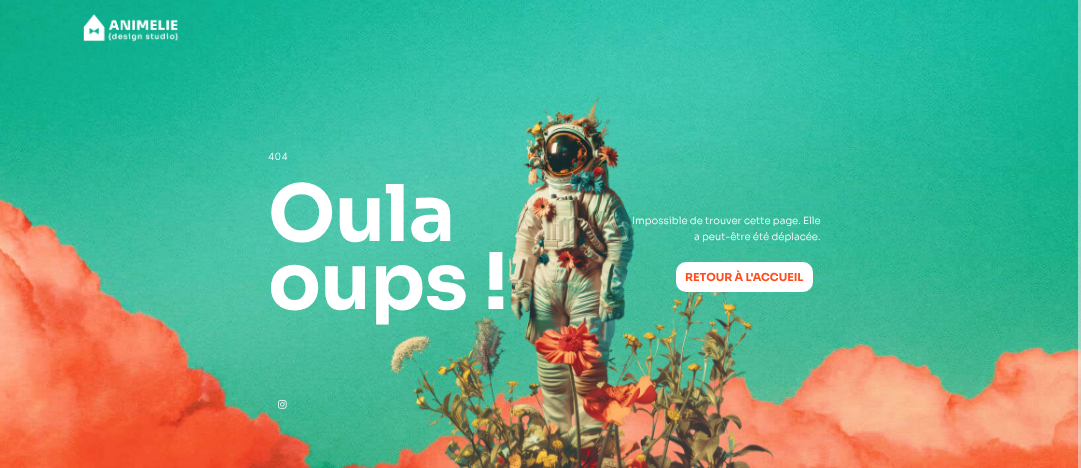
<svg xmlns="http://www.w3.org/2000/svg" width="1081" height="468" viewBox="0 0 1081 468">
  <rect width="100%" height="100%" fill="rgb(255,255,255)"/>
  <image x="0" y="0" width="1081" height="468" href="pic3.png"/>
  <image x="83" y="14" width="96" height="28" href="pic1.png"/>
  <image x="278" y="400" width="9" height="9" href="pic2.png"/>
  <image x="389" y="97" width="385" height="371" href="pic4.png"/>
  <text x="268" y="160" font-family="Inter" font-size="10" font-weight="300" letter-spacing="0.5" fill="rgb(255,255,255)">404</text>
  <g font-family="Sora" font-size="78" font-weight="bold" letter-spacing="-0.5" fill="rgb(255,255,255)">
    <text>
      <tspan x="268" y="241">Oula</tspan>
      <tspan x="268" y="309">oups !</tspan>
    </text>
  </g>
  <g font-family="Sora" font-size="10" font-weight="300" fill="rgb(255,255,255)">
    <text x="632" y="224">Impossible de trouver cette page. Elle</text>
    <text x="694" y="240">a peut-être été déplacée.</text>
  </g>
  <rect x="676" y="262" width="137" height="30" rx="10" fill="rgb(255,255,255)"/>
  <text x="685" y="281" font-family="Sora" font-size="11" font-weight="bold" fill="rgb(253,77,30)">RETOUR À L'ACCUEIL</text>
  <rect x="1078" y="0" width="3" height="468" fill="rgba(255,255,255,0.5)"/>
  <rect x="1081" y="371" width="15" height="96" fill="rgba(0,0,0,0.1)" filter="blur(5px)"/>
</svg>
